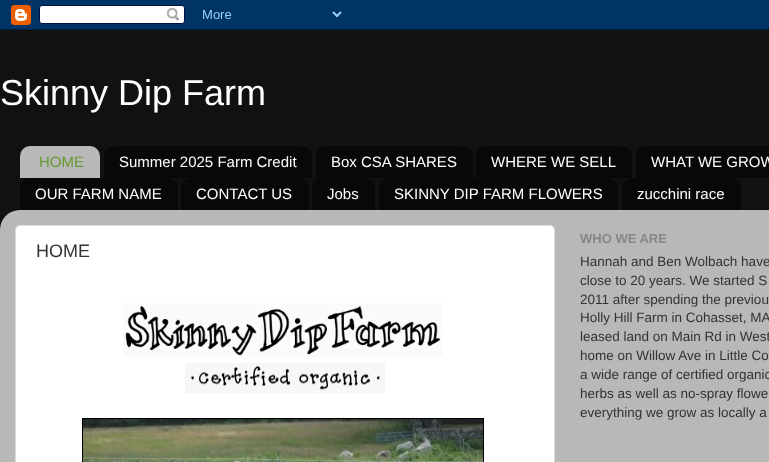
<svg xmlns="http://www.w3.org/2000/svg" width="769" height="462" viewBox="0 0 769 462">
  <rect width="100%" height="100%" fill="rgb(17,17,17)"/>
  <image x="0" y="0" width="769" height="30" href="pic1.png"/>
  <text x="0" y="105" font-family="Liberation Sans" font-size="36" fill="rgb(255,255,255)">Skinny Dip Farm</text>
  <image x="20" y="146" width="80" height="32" href="pic2.png"/>
  <text x="39" y="167" font-family="Liberation Sans" font-size="15" fill="rgb(102,153,51)">HOME</text>
  <image x="104" y="146" width="208" height="32" href="pic3.png"/>
  <text x="119" y="167" font-family="Liberation Sans" font-size="15" fill="rgb(255,255,255)">Summer 2025 Farm Credit</text>
  <image x="316" y="146" width="157" height="32" href="pic4.png"/>
  <text x="331" y="167" font-family="Liberation Sans" font-size="15" fill="rgb(255,255,255)">Box CSA SHARES</text>
  <image x="476" y="146" width="156" height="32" href="pic5.png"/>
  <text x="491" y="167" font-family="Liberation Sans" font-size="15" fill="rgb(255,255,255)">WHERE WE SELL</text>
  <image x="636" y="146" width="133" height="32" href="pic6.png"/>
  <text x="651" y="167" font-family="Liberation Sans" font-size="15" fill="rgb(255,255,255)">WHAT WE GROW</text>
  <image x="20" y="178" width="158" height="32" href="pic7.png"/>
  <text x="35" y="199" font-family="Liberation Sans" font-size="15" fill="rgb(255,255,255)">OUR FARM NAME</text>
  <image x="181" y="178" width="128" height="32" href="pic8.png"/>
  <text x="196" y="199" font-family="Liberation Sans" font-size="15" fill="rgb(255,255,255)">CONTACT US</text>
  <image x="312" y="178" width="63" height="32" href="pic9.png"/>
  <text x="327" y="199" font-family="Liberation Sans" font-size="15" fill="rgb(255,255,255)">Jobs</text>
  <image x="379" y="178" width="239" height="32" href="pic10.png"/>
  <text x="394" y="199" font-family="Liberation Sans" font-size="15" fill="rgb(255,255,255)">SKINNY DIP FARM FLOWERS</text>
  <image x="622" y="178" width="119" height="32" href="pic11.png"/>
  <text x="637" y="199" font-family="Liberation Sans" font-size="15" fill="rgb(255,255,255)">zucchini race</text>
  <image x="0" y="210" width="769" height="252" href="pic12.png"/>
  <rect x="15.5" y="225.5" width="539" height="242" rx="4.5" fill="rgb(255,255,255)" stroke="rgb(221,221,221)"/>
  <text x="36" y="257" font-family="Liberation Sans" font-size="18" fill="rgb(51,51,51)">HOME</text>
  <image x="123" y="303" width="320" height="54" href="pic13.png"/>
  <image x="185" y="363" width="200" height="30" href="pic14.png"/>
  <image x="83" y="419" width="400" height="43" href="pic15.png"/>
  <rect x="82.5" y="418.5" width="401" height="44" fill="none" stroke="rgb(0,0,0)"/>
  <text x="580" y="243" font-family="Liberation Sans" font-size="13" font-weight="bold" fill="rgb(136,136,136)">WHO WE ARE</text>
  <g font-family="Liberation Sans" font-size="13.5" fill="rgb(51,51,51)">
    <text>
      <tspan x="580" y="266">Hannah and Ben Wolbach have</tspan>
      <tspan x="580" y="285">close to 20 years. We started S</tspan>
      <tspan x="580" y="304">2011 after spending the previou</tspan>
      <tspan x="580" y="322">Holly Hill Farm in Cohasset, MA</tspan>
      <tspan x="580" y="341">leased land on Main Rd in West</tspan>
      <tspan x="580" y="360">home on Willow Ave in Little Co</tspan>
      <tspan x="580" y="379">a wide range of certified organic</tspan>
      <tspan x="580" y="398">herbs as well as no-spray flowe</tspan>
      <tspan x="580" y="417">everything we grow as locally a</tspan>
    </text>
  </g>
</svg>
